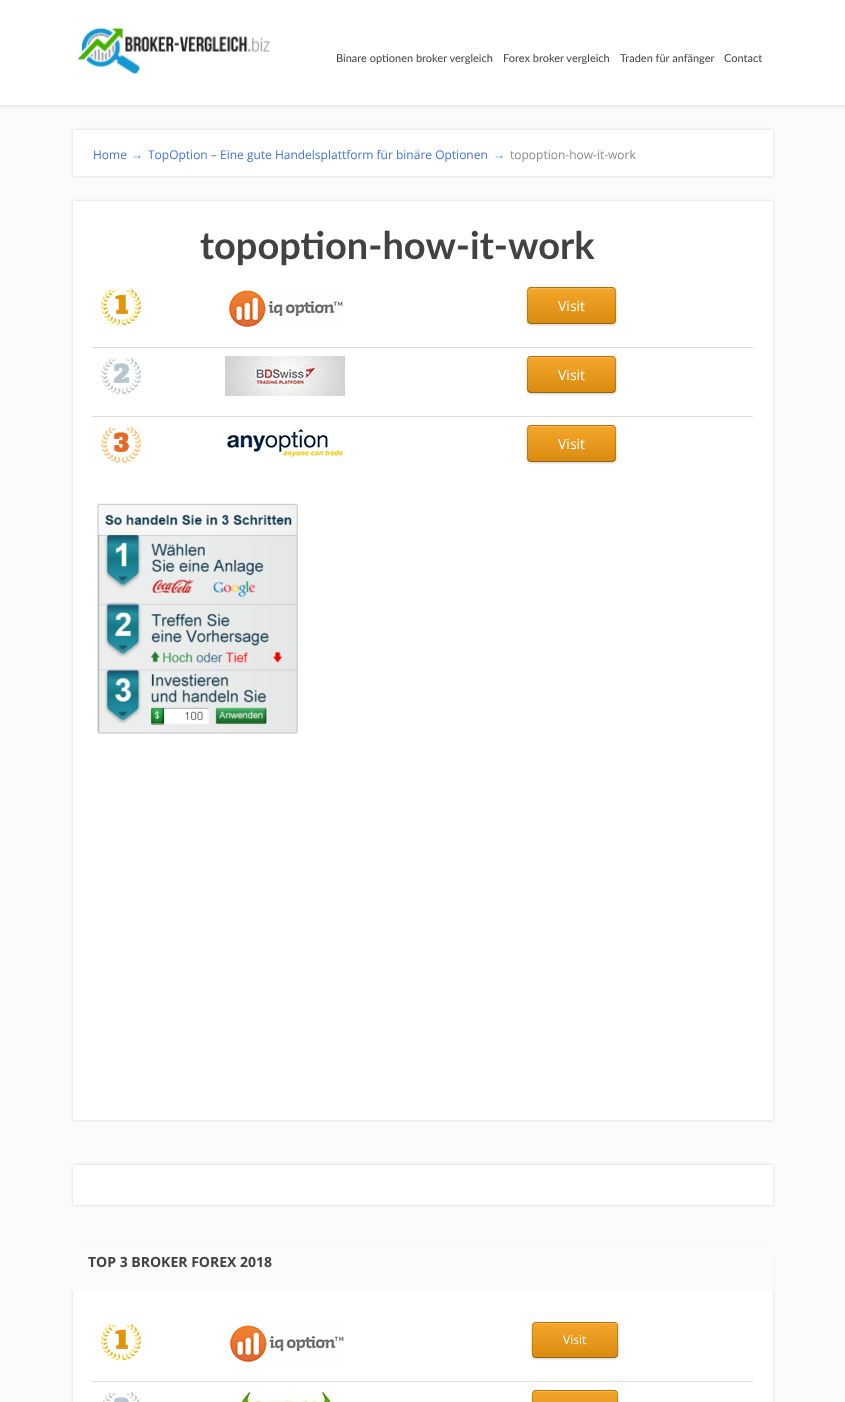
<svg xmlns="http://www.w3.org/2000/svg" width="845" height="1402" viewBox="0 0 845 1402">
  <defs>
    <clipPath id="clip1"><rect x="527" y="287" width="89" height="37" rx="4"/></clipPath>
    <linearGradient id="g1" gradientUnits="userSpaceOnUse" x1="572" y1="288" x2="572" y2="253"><stop offset="0" stop-color="rgb(0,0,0)" stop-opacity="0.1"/><stop offset="1" stop-color="rgb(255,255,255)" stop-opacity="0.1"/></linearGradient>
    <linearGradient id="g2" gradientUnits="userSpaceOnUse" x1="572" y1="323" x2="572" y2="288"><stop offset="0" stop-color="rgb(0,0,0)" stop-opacity="0.1"/><stop offset="1" stop-color="rgb(255,255,255)" stop-opacity="0.1"/></linearGradient>
    <linearGradient id="g3" gradientUnits="userSpaceOnUse" x1="572" y1="358" x2="572" y2="323"><stop offset="0" stop-color="rgb(0,0,0)" stop-opacity="0.1"/><stop offset="1" stop-color="rgb(255,255,255)" stop-opacity="0.1"/></linearGradient>
    <clipPath id="clip2"><rect x="527" y="356" width="89" height="37" rx="4"/></clipPath>
    <linearGradient id="g4" gradientUnits="userSpaceOnUse" x1="572" y1="357" x2="572" y2="322"><stop offset="0" stop-color="rgb(0,0,0)" stop-opacity="0.1"/><stop offset="1" stop-color="rgb(255,255,255)" stop-opacity="0.1"/></linearGradient>
    <linearGradient id="g5" gradientUnits="userSpaceOnUse" x1="572" y1="392" x2="572" y2="357"><stop offset="0" stop-color="rgb(0,0,0)" stop-opacity="0.1"/><stop offset="1" stop-color="rgb(255,255,255)" stop-opacity="0.1"/></linearGradient>
    <linearGradient id="g6" gradientUnits="userSpaceOnUse" x1="572" y1="427" x2="572" y2="392"><stop offset="0" stop-color="rgb(0,0,0)" stop-opacity="0.1"/><stop offset="1" stop-color="rgb(255,255,255)" stop-opacity="0.1"/></linearGradient>
    <clipPath id="clip3"><rect x="527" y="425" width="89" height="37" rx="4"/></clipPath>
    <linearGradient id="g7" gradientUnits="userSpaceOnUse" x1="572" y1="426" x2="572" y2="391"><stop offset="0" stop-color="rgb(0,0,0)" stop-opacity="0.1"/><stop offset="1" stop-color="rgb(255,255,255)" stop-opacity="0.1"/></linearGradient>
    <linearGradient id="g8" gradientUnits="userSpaceOnUse" x1="572" y1="461" x2="572" y2="426"><stop offset="0" stop-color="rgb(0,0,0)" stop-opacity="0.1"/><stop offset="1" stop-color="rgb(255,255,255)" stop-opacity="0.1"/></linearGradient>
    <linearGradient id="g9" gradientUnits="userSpaceOnUse" x1="572" y1="496" x2="572" y2="461"><stop offset="0" stop-color="rgb(0,0,0)" stop-opacity="0.1"/><stop offset="1" stop-color="rgb(255,255,255)" stop-opacity="0.1"/></linearGradient>
    <clipPath id="clip4"><rect x="532" y="1322" width="86" height="36" rx="4"/></clipPath>
    <linearGradient id="g10" gradientUnits="userSpaceOnUse" x1="575" y1="1323" x2="575" y2="1289"><stop offset="0" stop-color="rgb(0,0,0)" stop-opacity="0.1"/><stop offset="1" stop-color="rgb(255,255,255)" stop-opacity="0.1"/></linearGradient>
    <linearGradient id="g11" gradientUnits="userSpaceOnUse" x1="575" y1="1357" x2="575" y2="1323"><stop offset="0" stop-color="rgb(0,0,0)" stop-opacity="0.1"/><stop offset="1" stop-color="rgb(255,255,255)" stop-opacity="0.1"/></linearGradient>
    <linearGradient id="g12" gradientUnits="userSpaceOnUse" x1="575" y1="1391" x2="575" y2="1357"><stop offset="0" stop-color="rgb(0,0,0)" stop-opacity="0.1"/><stop offset="1" stop-color="rgb(255,255,255)" stop-opacity="0.1"/></linearGradient>
    <clipPath id="clip5"><rect x="532" y="1390" width="86" height="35" rx="4"/></clipPath>
    <linearGradient id="g13" gradientUnits="userSpaceOnUse" x1="575" y1="1391" x2="575" y2="1358"><stop offset="0" stop-color="rgb(0,0,0)" stop-opacity="0.1"/><stop offset="1" stop-color="rgb(255,255,255)" stop-opacity="0.1"/></linearGradient>
    <linearGradient id="g14" gradientUnits="userSpaceOnUse" x1="575" y1="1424" x2="575" y2="1391"><stop offset="0" stop-color="rgb(0,0,0)" stop-opacity="0.1"/><stop offset="1" stop-color="rgb(255,255,255)" stop-opacity="0.1"/></linearGradient>
  </defs>
  <rect width="100%" height="100%" fill="rgb(251,251,251)"/>
  <rect x="0" y="1" width="845" height="105" fill="rgb(223,221,221)" filter="blur(2px)"/>
  <rect x="0" y="0" width="845" height="105" fill="rgb(255,255,255)"/>
  <image x="77" y="27" width="193" height="48" href="pic1.png"/>
  <g font-family="Lato" font-size="11" fill="rgb(66,66,66)">
    <text x="336" y="62">Binare optionen broker vergleich</text>
    <text x="503" y="62">Forex broker vergleich</text>
    <text x="620" y="62">Traden für anfänger</text>
    <text x="724" y="62">Contact</text>
  </g>
  <rect x="73" y="130" width="700" height="46" fill="rgba(1,1,1,0.16)" filter="blur(1.5px)"/>
  <rect x="73" y="130" width="700" height="46" fill="rgb(255,255,255)"/>
  <text x="93" y="159" font-family="Open Sans" font-size="12" fill="rgb(65,116,220)">Home</text>
  <text x="131" y="159" font-family="Liberation Sans" font-size="12" fill="rgb(65,116,220)">→</text>
  <text x="148" y="159" font-family="Open Sans" font-size="12" fill="rgb(65,116,220)">TopOption – Eine gute Handelsplattform für binäre Optionen</text>
  <text x="493" y="159" font-family="Liberation Sans" font-size="12" fill="rgb(65,116,220)">→</text>
  <text x="510" y="159" font-family="Open Sans" font-size="12" fill="rgb(140,139,139)">topoption-how-it-work</text>
  <rect x="73" y="201" width="700" height="919" fill="rgba(1,1,1,0.16)" filter="blur(1.5px)"/>
  <rect x="73" y="201" width="700" height="919" fill="rgb(255,255,255)"/>
  <text x="200" y="259" font-family="Lato" font-size="38" font-weight="bold" fill="rgb(66,66,66)">topoption-how-it-work</text>
  <image x="101" y="289" width="40" height="37" href="pic2.png"/>
  <image x="225" y="287" width="118" height="40" href="pic3.png"/>
  <rect x="527" y="288" width="89" height="37" rx="4" fill="rgba(0,0,0,0.2)" filter="blur(1px)"/>
  <rect x="527" y="287" width="89" height="37" rx="4" fill="rgb(243,156,18)"/>
  <g clip-path="url(#clip1)">
    <rect x="527" y="287" width="89" height="1" fill="url(#g1)"/>
    <rect x="527" y="288" width="89" height="35" fill="url(#g2)"/>
    <rect x="527" y="323" width="89" height="1" fill="url(#g3)"/>
  </g>
  <path d="M614.5 322.5L612.5 323.5H530.5L528.5 322.5" fill="none" stroke="rgba(0,0,0,0.4)"/>
  <path d="M528.5 322.5C527 320.5 527.5 317 527.5 315V305.5C527.5 285 524 287.5 544.5 287.5H598.5C619 287.5 615.5 285 615.5 305.5V315C615.5 317 616 320.5 614.5 322.5" fill="none" stroke="rgba(0,0,0,0.2)"/>
  <rect x="530" y="288" width="83" height="1" fill="rgba(255,255,255,0.2)"/>
  <text x="558" y="311" font-family="Open Sans" font-size="14" fill="rgb(255,255,255)">Visit</text>
  <image x="101" y="358" width="40" height="37" href="pic4.png"/>
  <image x="225" y="356" width="120" height="40" href="pic5.png"/>
  <rect x="92" y="347" width="661" height="1" fill="rgb(221,221,221)"/>
  <rect x="527" y="357" width="89" height="37" rx="4" fill="rgba(0,0,0,0.2)" filter="blur(1px)"/>
  <rect x="527" y="356" width="89" height="37" rx="4" fill="rgb(243,156,18)"/>
  <g clip-path="url(#clip2)">
    <rect x="527" y="356" width="89" height="1" fill="url(#g4)"/>
    <rect x="527" y="357" width="89" height="35" fill="url(#g5)"/>
    <rect x="527" y="392" width="89" height="1" fill="url(#g6)"/>
  </g>
  <path d="M614.5 391.5L612.5 392.5H530.5L528.5 391.5" fill="none" stroke="rgba(0,0,0,0.4)"/>
  <path d="M528.5 391.5C527 389.5 527.5 386 527.5 384V374.5C527.5 354 524 356.5 544.5 356.5H598.5C619 356.5 615.5 354 615.5 374.5V384C615.5 386 616 389.5 614.5 391.5" fill="none" stroke="rgba(0,0,0,0.2)"/>
  <rect x="530" y="357" width="83" height="1" fill="rgba(255,255,255,0.2)"/>
  <text x="558" y="380" font-family="Open Sans" font-size="14" fill="rgb(255,255,255)">Visit</text>
  <image x="101" y="427" width="40" height="36" href="pic6.png"/>
  <image x="227" y="429" width="116" height="29" href="pic7.png"/>
  <rect x="92" y="416" width="661" height="1" fill="rgb(221,221,221)"/>
  <rect x="527" y="426" width="89" height="37" rx="4" fill="rgba(0,0,0,0.2)" filter="blur(1px)"/>
  <rect x="527" y="425" width="89" height="37" rx="4" fill="rgb(243,156,18)"/>
  <g clip-path="url(#clip3)">
    <rect x="527" y="425" width="89" height="1" fill="url(#g7)"/>
    <rect x="527" y="426" width="89" height="35" fill="url(#g8)"/>
    <rect x="527" y="461" width="89" height="1" fill="url(#g9)"/>
  </g>
  <path d="M614.5 460.5L612.5 461.5H530.5L528.5 460.5" fill="none" stroke="rgba(0,0,0,0.4)"/>
  <path d="M528.5 460.5C527 458.5 527.5 455 527.5 453V443.5C527.5 423 524 425.5 544.5 425.5H598.5C619 425.5 615.5 423 615.5 443.5V453C615.5 455 616 458.5 614.5 460.5" fill="none" stroke="rgba(0,0,0,0.2)"/>
  <rect x="530" y="426" width="83" height="1" fill="rgba(255,255,255,0.2)"/>
  <text x="558" y="449" font-family="Open Sans" font-size="14" fill="rgb(255,255,255)">Visit</text>
  <image x="97" y="503" width="201" height="231" href="pic8.png"/>
  <rect x="73" y="1165" width="700" height="40" fill="rgba(1,1,1,0.16)" filter="blur(1.5px)"/>
  <rect x="73" y="1165" width="700" height="40" fill="rgb(255,255,255)"/>
  <rect x="73" y="1250" width="700" height="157" fill="rgba(1,1,1,0.16)" filter="blur(1.5px)"/>
  <rect x="73" y="1291" width="700" height="111" fill="rgb(255,255,255)"/>
  <rect x="71" y="1248" width="704" height="43" fill="rgb(251,251,251)"/>
  <text x="88" y="1267" font-family="Open Sans" font-size="14" font-weight="bold" fill="rgb(66,66,66)">TOP 3 BROKER FOREX 2018</text>
  <image x="101" y="1324" width="40" height="37" href="pic9.png"/>
  <image x="226" y="1322" width="118" height="40" href="pic3.png"/>
  <rect x="532" y="1323" width="86" height="36" rx="4" fill="rgba(0,0,0,0.2)" filter="blur(1px)"/>
  <rect x="532" y="1322" width="86" height="36" rx="4" fill="rgb(243,156,18)"/>
  <g clip-path="url(#clip4)">
    <rect x="532" y="1322" width="86" height="1" fill="url(#g10)"/>
    <rect x="532" y="1323" width="86" height="34" fill="url(#g11)"/>
    <rect x="532" y="1357" width="86" height="1" fill="url(#g12)"/>
  </g>
  <path d="M616.5 1356.5L614.5 1357.5H535.5L533.5 1356.5" fill="none" stroke="rgba(0,0,0,0.4)"/>
  <path d="M533.5 1356.5C531 1354 532.5 1343 532.5 1340C532.5 1320 529 1322.5 549 1322.5H601C621 1322.5 617.5 1320 617.5 1340C617.5 1343 619 1354 616.5 1356.5" fill="none" stroke="rgba(0,0,0,0.2)"/>
  <rect x="535" y="1323" width="80" height="1" fill="rgba(255,255,255,0.2)"/>
  <text x="563" y="1344" font-family="Open Sans" font-size="12" fill="rgb(255,255,255)">Visit</text>
  <rect x="92" y="1381" width="661" height="1" fill="rgb(221,221,221)"/>
  <rect x="532" y="1391" width="86" height="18" rx="4" fill="rgba(0,0,0,0.2)" filter="blur(1px)"/>
  <rect x="532" y="1390" width="86" height="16" rx="4" fill="rgb(243,156,18)"/>
  <g clip-path="url(#clip5)">
    <rect x="532" y="1390" width="86" height="1" fill="url(#g13)"/>
  </g>
  <rect x="532" y="1391" width="86" height="11" fill="url(#g14)"/>
  <path d="M533.5 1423.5C531.5 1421 532.5 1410.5 532.5 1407.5C532.5 1388 529 1390.5 549 1390.5H601C621 1390.5 617.5 1388 617.5 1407.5C617.5 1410.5 618.5 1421 616.5 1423.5" fill="none" stroke="rgba(0,0,0,0.2)"/>
  <rect x="535" y="1391" width="80" height="1" fill="rgba(255,255,255,0.2)"/>
  <image x="103" y="1392" width="37" height="10" href="pic10.png"/>
  <image x="238" y="1390" width="100" height="12" href="pic11.png"/>
</svg>
